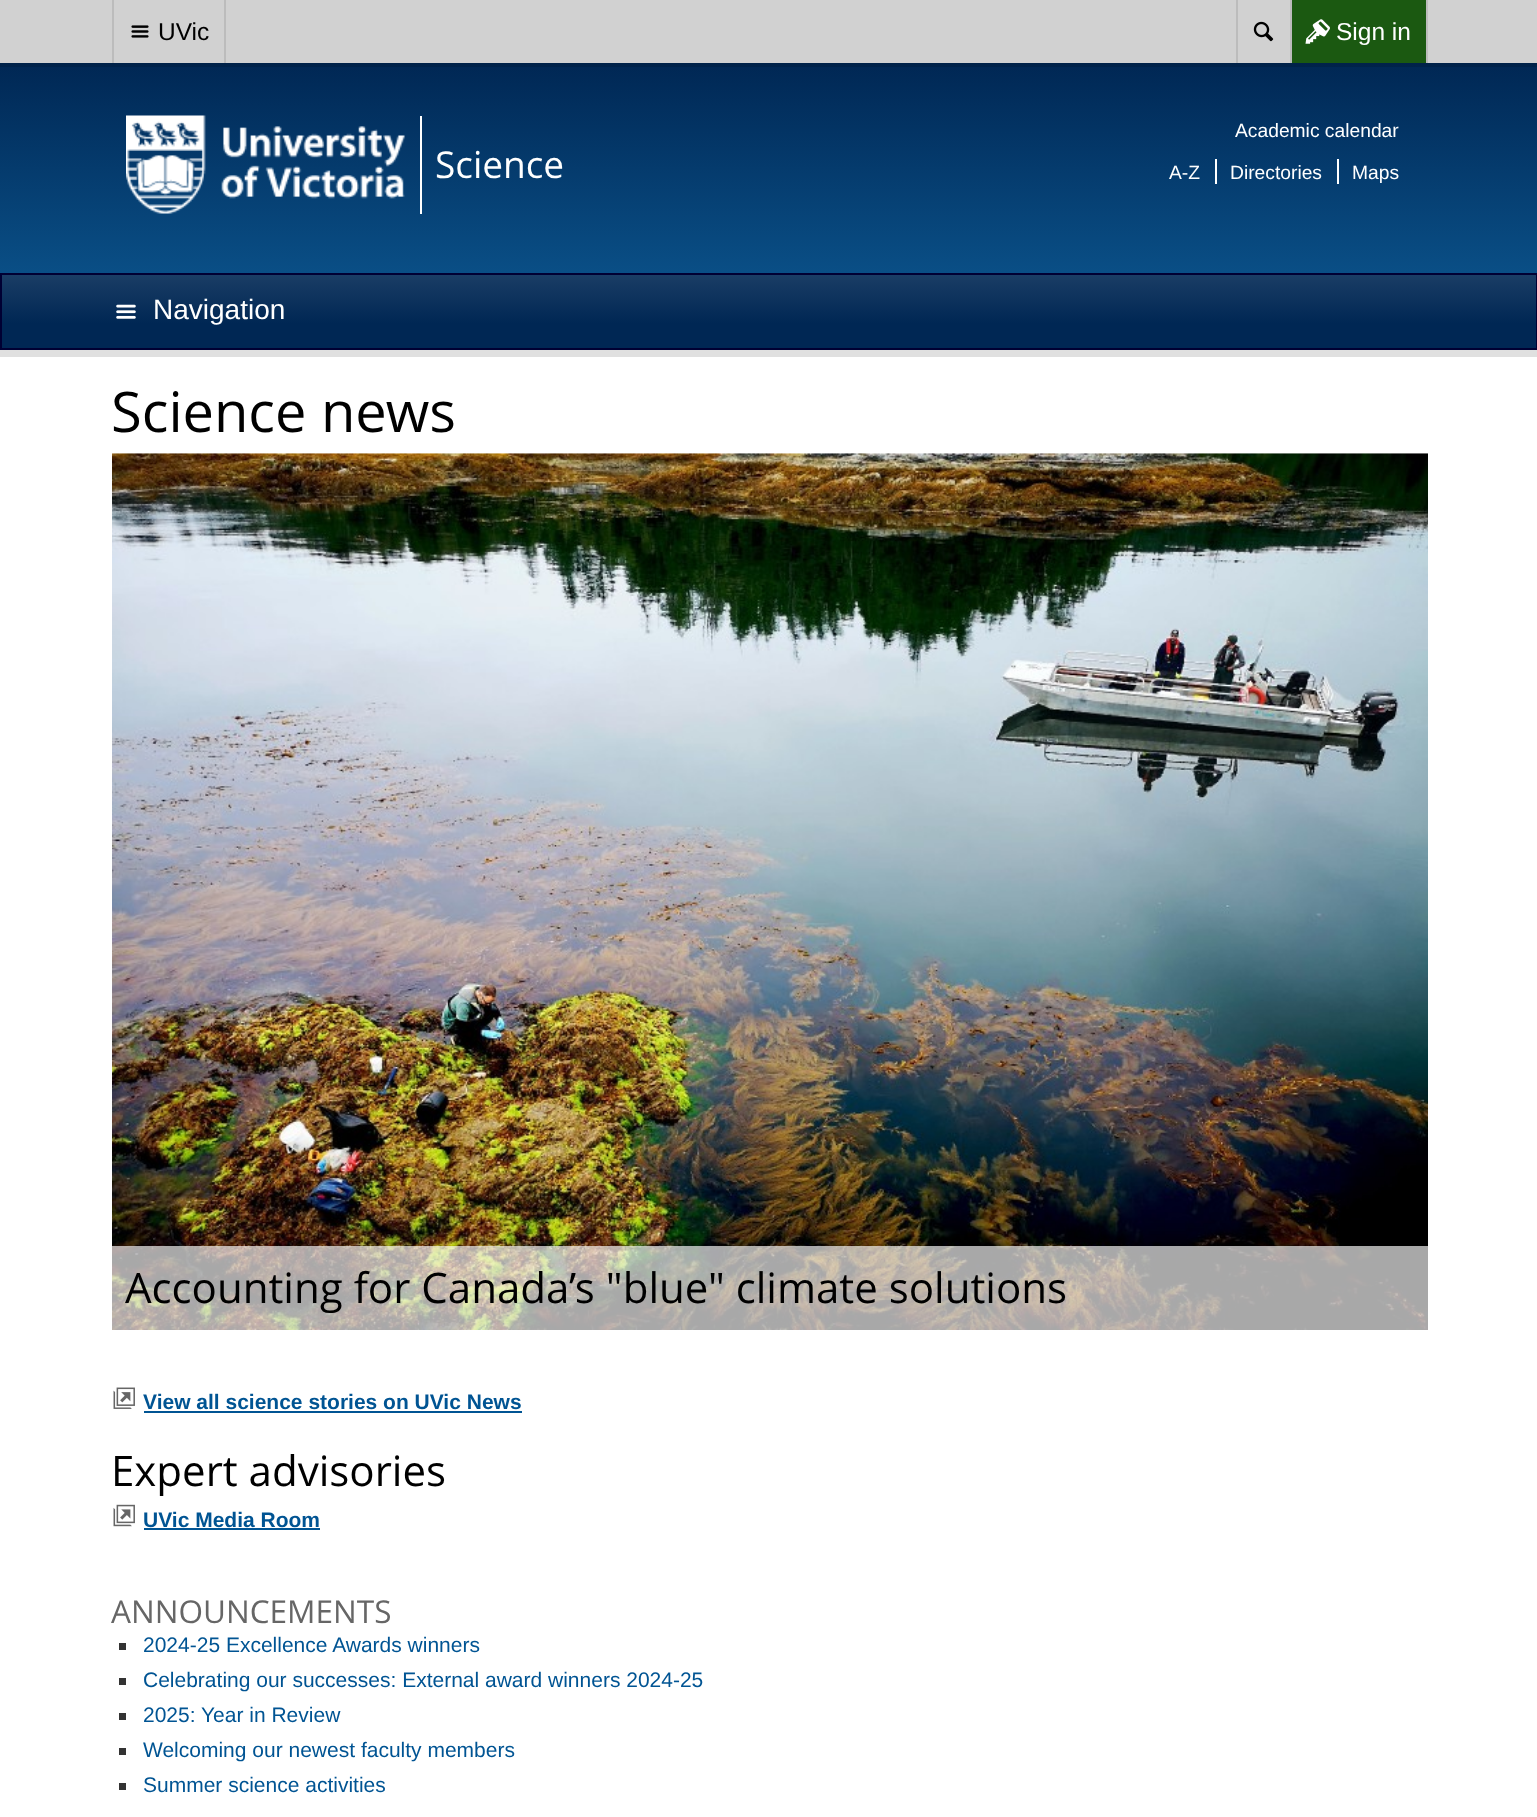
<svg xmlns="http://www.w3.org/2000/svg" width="1537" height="1817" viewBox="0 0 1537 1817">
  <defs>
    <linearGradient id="g1" gradientUnits="userSpaceOnUse" x1="769" y1="63" x2="769" y2="350"><stop offset="0" stop-color="rgb(0,39,84)"/><stop offset="1" stop-color="rgb(13,93,152)"/></linearGradient>
    <linearGradient id="g2" gradientUnits="userSpaceOnUse" x1="769" y1="275" x2="769" y2="348"><stop offset="0" stop-color="rgb(26,61,101)"/><stop offset="0.66" stop-color="rgb(0,39,84)"/></linearGradient>
  </defs>
  <rect width="100%" height="100%" fill="rgb(255,255,255)"/>
  <rect x="-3.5" y="59.5" width="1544" height="294" fill="none" stroke="rgb(224,224,224)" stroke-width="7"/>
  <rect x="0" y="63" width="1537" height="210" fill="url(#g1)"/>
  <rect x="-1" y="-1" width="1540" height="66" fill="none" stroke="rgba(0,0,0,0.12)" stroke-width="4"/>
  <rect x="0" y="0" width="1537" height="63" fill="rgb(209,209,209)"/>
  <rect x="224" y="0" width="2" height="63" fill="rgb(188,188,188)"/>
  <rect x="112" y="0" width="2" height="63" fill="rgb(188,188,188)"/>
  <image x="131" y="25" width="18" height="13" href="pic1.png"/>
  <text x="158" y="40" font-family="Liberation Sans" font-size="24.5" fill="rgb(0,0,0)">UVic</text>
  <rect x="1236" y="0" width="2" height="63" fill="rgb(188,188,188)"/>
  <image x="1253" y="21" width="21" height="21" href="pic2.png"/>
  <rect x="1292" y="0" width="134" height="63" fill="rgb(27,89,17)"/>
  <rect x="1426" y="0" width="2" height="63" fill="rgb(188,188,188)"/>
  <rect x="1290" y="0" width="2" height="63" fill="rgb(188,188,188)"/>
  <image x="1305" y="19" width="25" height="25" href="pic3.png"/>
  <text x="1336" y="40" font-family="Liberation Sans" font-size="24.5" fill="rgb(255,255,255)">Sign in</text>
  <image x="126" y="115" width="279" height="99" href="pic4.png"/>
  <rect x="420" y="116" width="2" height="98" fill="rgb(255,255,255)"/>
  <text x="435" y="178" font-family="Open Sans" font-size="37" fill="rgb(255,255,255)">Science</text>
  <g font-family="Liberation Sans" font-size="19.25" fill="rgb(255,255,255)">
    <text x="1235" y="137">Academic calendar</text>
    <text x="1169" y="179">A-Z</text>
    <text x="1230" y="179">Directories</text>
  </g>
  <rect x="1215" y="159" width="2" height="25" fill="rgb(255,255,255)"/>
  <text x="1352" y="179" font-family="Liberation Sans" font-size="19.25" fill="rgb(255,255,255)">Maps</text>
  <rect x="1337" y="159" width="2" height="25" fill="rgb(255,255,255)"/>
  <rect x="2" y="275" width="1534" height="73" fill="url(#g2)"/>
  <rect x="1" y="274" width="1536" height="75" fill="none" stroke="rgb(0,0,51)" stroke-width="2"/>
  <image x="116" y="304" width="20" height="15" href="pic5.png"/>
  <text x="153" y="319" font-family="Liberation Sans" font-size="28" fill="rgb(255,255,255)">Navigation</text>
  <text x="111" y="432" font-family="Open Sans" font-size="56" fill="rgb(0,0,0)">Science news</text>
  <image x="112" y="453" width="1316" height="877" href="pic6.png"/>
  <rect x="112" y="1246" width="1316" height="84" fill="rgba(255,255,255,0.66)"/>
  <text x="125" y="1303" font-family="Open Sans" font-size="42" fill="rgb(0,0,0)">Accounting for Canada’s "blue" climate solutions</text>
  <image x="113" y="1387" width="22" height="22" href="pic7.png"/>
  <text x="143" y="1409" font-family="Liberation Sans" font-size="21" font-weight="bold" fill="rgb(0,84,147)">View all science stories on UVic News</text>
  <rect x="144" y="1411" width="378" height="2" fill="rgb(0,84,147)"/>
  <text x="111" y="1486" font-family="Open Sans" font-size="42" fill="rgb(0,0,0)">Expert advisories</text>
  <image x="113" y="1504" width="22" height="23" href="pic8.png"/>
  <text x="143" y="1527" font-family="Liberation Sans" font-size="21" font-weight="bold" fill="rgb(0,84,147)">UVic Media Room</text>
  <rect x="144" y="1528" width="176" height="2" fill="rgb(0,84,147)"/>
  <text x="111" y="1623" font-family="Open Sans" font-size="31.5" fill="rgb(102,102,102)">ANNOUNCEMENTS</text>
  <rect x="119" y="1643" width="7" height="7" fill="rgb(51,51,51)"/>
  <text x="143" y="1652" font-family="Liberation Sans" font-size="21" fill="rgb(0,84,147)">2024-25 Excellence Awards winners</text>
  <rect x="119" y="1678" width="7" height="7" fill="rgb(51,51,51)"/>
  <text x="143" y="1687" font-family="Liberation Sans" font-size="21" fill="rgb(0,84,147)">Celebrating our successes: External award winners 2024-25</text>
  <rect x="119" y="1713" width="7" height="7" fill="rgb(51,51,51)"/>
  <text x="143" y="1722" font-family="Liberation Sans" font-size="21" fill="rgb(0,84,147)">2025: Year in Review</text>
  <rect x="119" y="1748" width="7" height="7" fill="rgb(51,51,51)"/>
  <text x="143" y="1757" font-family="Liberation Sans" font-size="21" fill="rgb(0,84,147)">Welcoming our newest faculty members</text>
  <rect x="119" y="1783" width="7" height="7" fill="rgb(51,51,51)"/>
  <text x="143" y="1792" font-family="Liberation Sans" font-size="21" fill="rgb(0,84,147)">Summer science activities</text>
</svg>
